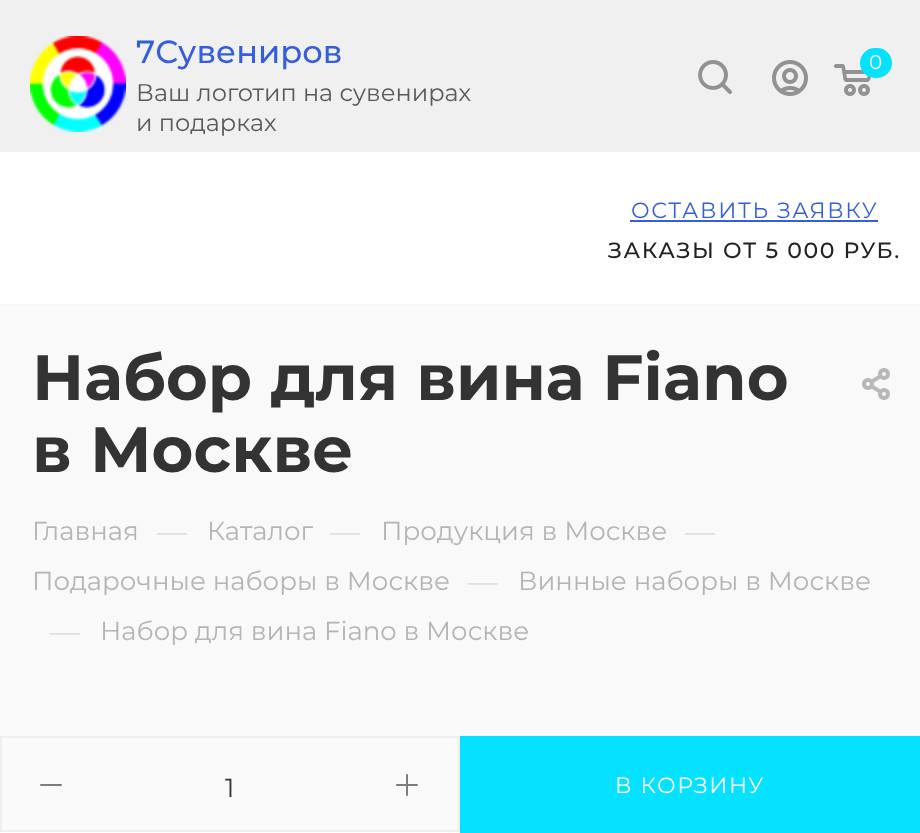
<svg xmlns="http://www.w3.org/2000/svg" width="920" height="833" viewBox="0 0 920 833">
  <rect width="100%" height="100%" fill="rgb(255,255,255)"/>
  <rect x="0" y="304" width="920" height="2" fill="rgb(245,245,245)"/>
  <rect x="0" y="0" width="920" height="152" fill="rgb(240,240,240)"/>
  <image x="30" y="36" width="96" height="96" href="pic1.png"/>
  <text x="136" y="63" font-family="Montserrat" font-size="32" font-weight="500" fill="rgb(54,94,220)">7Сувениров</text>
  <g font-family="Montserrat" font-size="24" fill="rgb(90,90,90)">
    <text>
      <tspan x="136" y="101">Ваш логотип на сувенирах</tspan>
      <tspan x="136" y="131">и подарках</tspan>
    </text>
  </g>
  <image x="698" y="60" width="34" height="34" href="pic2.png"/>
  <image x="772" y="60" width="36" height="36" href="pic3.png"/>
  <image x="834" y="64" width="37" height="32" href="pic4.png"/>
  <rect x="860" y="48" width="32" height="30" rx="15" fill="rgb(4,226,255)"/>
  <text x="869" y="69" font-family="Montserrat" font-size="20" fill="rgb(255,255,255)">0</text>
  <text x="631" y="218" font-family="Montserrat" font-size="22" letter-spacing="1.6" fill="rgb(54,94,220)">ОСТАВИТЬ ЗАЯВКУ</text>
  <rect x="630" y="220" width="248" height="2" fill="rgb(54,94,220)"/>
  <text x="608" y="258" font-family="Montserrat" font-size="22" font-weight="500" letter-spacing="1.6" fill="rgb(34,34,34)">ЗАКАЗЫ ОТ 5 000 РУБ.</text>
  <rect x="0" y="306" width="920" height="430" fill="rgb(249,249,250)"/>
  <g font-family="Montserrat" font-size="64" font-weight="bold" fill="rgb(51,51,51)">
    <text>
      <tspan x="32" y="400">Набор для вина Fiano</tspan>
      <tspan x="32" y="472">в Москве</tspan>
    </text>
  </g>
  <image x="862" y="368" width="28" height="32" href="pic5.png"/>
  <text x="32" y="540" font-family="Montserrat" font-size="26" fill="rgb(182,181,181)">Главная</text>
  <text x="157" y="542" font-family="Montserrat" font-size="30" fill="rgb(221,221,221)">—</text>
  <text x="207" y="540" font-family="Montserrat" font-size="26" fill="rgb(182,181,181)">Каталог</text>
  <text x="330" y="542" font-family="Montserrat" font-size="30" fill="rgb(221,221,221)">—</text>
  <text x="381" y="540" font-family="Montserrat" font-size="26" fill="rgb(182,181,181)">Продукция в Москве</text>
  <text x="685" y="542" font-family="Montserrat" font-size="30" fill="rgb(221,221,221)">—</text>
  <text x="32" y="590" font-family="Montserrat" font-size="26" fill="rgb(182,181,181)">Подарочные наборы в Москве</text>
  <text x="468" y="592" font-family="Montserrat" font-size="30" fill="rgb(221,221,221)">—</text>
  <text x="518" y="590" font-family="Montserrat" font-size="26" fill="rgb(182,181,181)">Винные наборы в Москве</text>
  <text x="50" y="642" font-family="Montserrat" font-size="30" fill="rgb(221,221,221)">—</text>
  <text x="100" y="640" font-family="Montserrat" font-size="26" fill="rgb(182,181,181)">Набор для вина Fiano в Москве</text>
  <rect x="1" y="737" width="458" height="94" fill="rgb(250,250,250)" stroke="rgb(238,238,238)" stroke-width="2"/>
  <rect x="40" y="784" width="22" height="2" rx="1" fill="rgb(125,125,125)"/>
  <text x="225" y="797" font-family="Montserrat" font-size="26" fill="rgb(51,51,51)">1</text>
  <image x="396" y="774" width="22" height="22" href="pic6.png"/>
  <rect x="460" y="736" width="460" height="97" fill="rgb(4,226,255)"/>
  <text x="615" y="793" font-family="Montserrat" font-size="22" letter-spacing="1.6" fill="rgb(255,255,255)">В КОРЗИНУ</text>
</svg>
